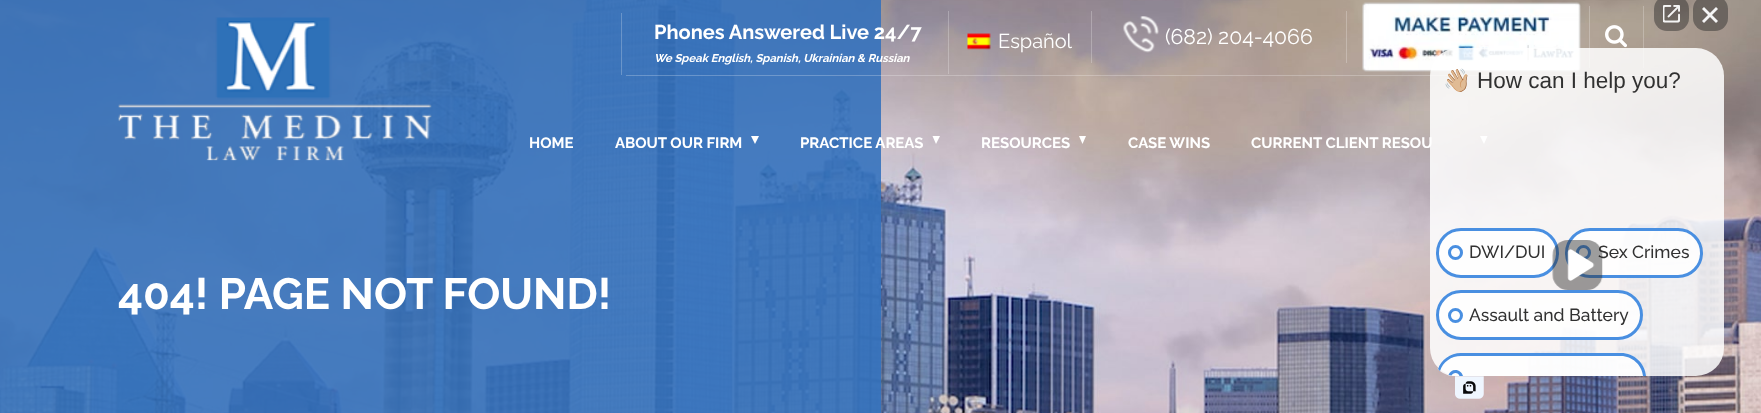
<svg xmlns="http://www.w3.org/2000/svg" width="1761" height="413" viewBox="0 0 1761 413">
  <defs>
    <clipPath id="clip1"><path d="M1430 105H1724V351C1724 365 1713 376 1699 376H1455C1441 376 1430 365 1430 351Z"/></clipPath>
  </defs>
  <rect width="100%" height="100%" fill="rgb(255,255,255)"/>
  <image x="0" y="0" width="1761" height="413" href="pic1.png"/>
  <rect x="0" y="0" width="881" height="413" fill="rgba(52,113,189,0.89)"/>
  <text x="118" y="309" font-family="Raleway" font-size="43.75" font-weight="bold" fill="rgb(255,255,255)">404! PAGE NOT FOUND!</text>
  <image x="118" y="17" width="314" height="144" href="pic2.png"/>
  <rect x="626" y="75" width="1018" height="1" fill="rgba(255,255,255,0.24)"/>
  <rect x="621" y="13" width="1" height="62" fill="rgba(255,255,255,0.24)"/>
  <text x="654" y="39" font-family="Raleway" font-size="20" font-weight="bold" fill="rgb(255,255,255)">Phones Answered Live 24/7</text>
  <text x="654" y="62" font-family="Raleway" font-size="11.25" font-weight="bold" font-style="italic" fill="rgb(255,255,255)">We Speak English, Spanish, Ukrainian &amp; Russian</text>
  <rect x="948" y="11" width="1" height="63" fill="rgba(255,255,255,0.24)"/>
  <image x="967" y="33" width="24" height="17" href="pic3.png"/>
  <text x="998" y="48" font-family="Raleway" font-size="20" fill="rgb(255,255,255)">Español</text>
  <rect x="1091" y="11" width="1" height="52" fill="rgba(255,255,255,0.24)"/>
  <rect x="1346" y="11" width="1" height="52" fill="rgba(255,255,255,0.24)"/>
  <image x="1123" y="16" width="36" height="37" href="pic4.png"/>
  <text x="1165" y="44" font-family="Raleway" font-size="21.25" fill="rgb(255,255,255)">(682) 204-4066</text>
  <image x="1362" y="2" width="219" height="70" href="pic5.png"/>
  <rect x="1643" y="6" width="1" height="62" fill="rgba(255,255,255,0.24)"/>
  <rect x="1589" y="6" width="1" height="62" fill="rgba(255,255,255,0.24)"/>
  <image x="1605" y="25" width="22" height="23" href="pic6.png"/>
  <g font-family="Raleway" font-size="15" font-weight="bold" fill="rgb(255,255,255)">
    <text x="529" y="148">HOME</text>
    <text x="615" y="148">ABOUT OUR FIRM</text>
  </g>
  <path d="M751 136H759L755 144Z" fill="rgb(255,255,255)"/>
  <text x="800" y="148" font-family="Raleway" font-size="15" font-weight="bold" fill="rgb(255,255,255)">PRACTICE AREAS</text>
  <path d="M932.5 136H940L936 144Z" fill="rgb(255,255,255)"/>
  <text x="981" y="148" font-family="Raleway" font-size="15" font-weight="bold" fill="rgb(255,255,255)">RESOURCES</text>
  <path d="M1079 136H1086L1082.5 144Z" fill="rgb(255,255,255)"/>
  <g font-family="Raleway" font-size="15" font-weight="bold" fill="rgb(255,255,255)">
    <text x="1128" y="148">CASE WINS</text>
    <text x="1251" y="148">CURRENT CLIENT RESOU</text>
  </g>
  <path d="M1480 136H1487.5L1484 144Z" fill="rgb(255,255,255)"/>
  <rect x="1430" y="48" width="294" height="328" rx="28" fill="rgba(255,255,255,0.85)"/>
  <rect x="1654" y="-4" width="35" height="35" rx="13" fill="rgba(39,39,39,0.45)"/>
  <image x="1663" y="5" width="17" height="18" href="pic7.png"/>
  <rect x="1693" y="-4" width="35" height="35" rx="13" fill="rgba(39,39,39,0.45)"/>
  <path d="M1702 9L1704 7L1718 21L1716 23Z" fill="rgb(245,245,245)"/>
  <path d="M1716 7L1718 9L1704 23L1702 21Z" fill="rgb(245,245,245)"/>
  <text x="1443" y="88" font-family="Noto Color Emoji" font-size="22.5" fill="rgb(49,49,49)">👋🏼</text>
  <text x="1477" y="88" font-family="Liberation Sans" font-size="22.5" fill="rgb(49,49,49)">How can I help you?</text>
  <rect x="1437.5" y="229.5" width="120" height="47" rx="23.5" fill="rgba(255,255,255,0.85)" stroke="rgb(73,143,225)" stroke-width="3"/>
  <rect x="1566.5" y="229.5" width="135" height="47" rx="23.5" fill="rgba(255,255,255,0.85)" stroke="rgb(73,143,225)" stroke-width="3"/>
  <circle cx="1583.5" cy="252.5" r="6" fill="none" stroke="rgb(73,143,225)" stroke-width="3"/>
  <text x="1598" y="258" font-family="Raleway" font-size="17.5" font-weight="500" fill="rgb(49,49,49)">Sex Crimes</text>
  <image x="1552" y="240" width="51" height="50" href="pic8.png"/>
  <circle cx="1455.5" cy="252.5" r="6" fill="none" stroke="rgb(73,143,225)" stroke-width="3"/>
  <text x="1469" y="258" font-family="Raleway" font-size="17.5" font-weight="500" fill="rgb(49,49,49)">DWI/DUI</text>
  <rect x="1437.5" y="291.5" width="204" height="47" rx="23.5" fill="rgba(255,255,255,0.85)" stroke="rgb(73,143,225)" stroke-width="3"/>
  <circle cx="1455.5" cy="315.5" r="6" fill="none" stroke="rgb(73,143,225)" stroke-width="3"/>
  <text x="1469" y="321" font-family="Raleway" font-size="17.5" font-weight="500" fill="rgb(49,49,49)">Assault and Battery</text>
  <g clip-path="url(#clip1)">
    <path d="M1461 353H1621C1635 353 1646 364 1646 378V376H1436V378C1436 364 1447 353 1461 353Z" fill="rgba(255,255,255,0.85)"/>
  </g>
  <path d="M1461 353C1450 353 1441 360 1438 369L1440 371C1443 362 1451 356 1461 356H1621C1632 356 1642 365 1643 376H1646C1645 363 1634 353 1621 353Z" fill="rgb(73,143,225)"/>
  <g clip-path="url(#clip1)">
    <path d="M1455.5 370C1459.5 370 1463 373.5 1463 377.5V376H1448V377.5C1448 373.5 1451.5 370 1455.5 370Z" fill="rgb(255,255,255)"/>
  </g>
  <path d="M1455.5 370C1452 370 1449.5 372 1448.5 375L1451.5 375.5C1453 372 1458.5 372 1459.5 376H1463C1462 372.5 1459 370 1455.5 370Z" fill="rgb(73,143,225)"/>
  <image x="1455" y="376" width="29" height="23" href="pic9.png"/>
</svg>
